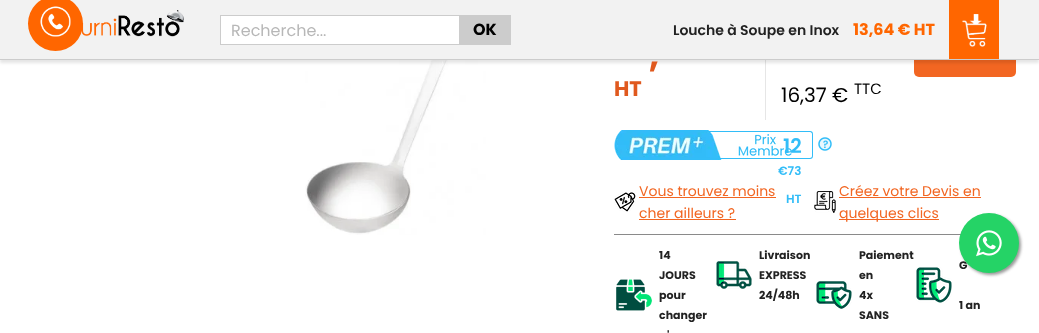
<svg xmlns="http://www.w3.org/2000/svg" width="1039" height="333" viewBox="0 0 1039 333">
  <rect width="100%" height="100%" fill="rgb(255,255,255)"/>
  <image x="305" y="60" width="181" height="175" href="pic5.png"/>
  <rect x="765" y="60" width="1" height="60" fill="rgb(230,230,230)"/>
  <rect x="914" y="33" width="102" height="44" rx="5" fill="rgb(242,102,34)"/>
  <rect x="0" y="3" width="1039" height="60" fill="rgba(0,0,0,0.1)" filter="blur(1.5px)"/>
  <rect x="0" y="0" width="1039" height="59" fill="rgb(242,242,242)"/>
  <image x="81" y="10" width="103" height="27" href="pic3.png"/>
  <circle cx="55.5" cy="23.5" r="27.5" fill="rgb(255,102,0)"/>
  <image x="40" y="6" width="31" height="31" href="pic1.png"/>
  <rect x="614" y="234" width="347" height="1" fill="rgb(138,138,138)"/>
  <rect x="961" y="215" width="60" height="60" rx="30" fill="rgb(153,153,153)" filter="blur(1.5px)"/>
  <text x="959" y="269" font-family="Poppins" font-size="11" font-weight="bold" fill="rgb(34,34,34)">G</text>
  <circle cx="989" cy="243" r="30" fill="rgb(37,211,102)"/>
  <image x="976" y="230" width="26" height="27" href="pic2.png"/>
  <rect x="0" y="59" width="1039" height="1" fill="rgb(204,204,204)"/>
  <rect x="220.5" y="15.5" width="239" height="29" fill="rgb(255,255,255)" stroke="rgb(204,204,204)"/>
  <text x="231" y="36" font-family="Poppins" font-size="16" fill="rgb(183,183,183)">Recherche...</text>
  <rect x="460" y="15" width="51" height="30" fill="rgb(204,204,204)"/>
  <text x="473" y="35" font-family="Poppins" font-size="16" font-weight="bold" fill="rgb(0,0,0)">OK</text>
  <text x="673" y="35" font-family="Poppins" font-size="14" font-weight="600" fill="rgb(34,34,34)">Louche à Soupe en Inox</text>
  <text x="853" y="35" font-family="Poppins" font-size="16" font-weight="bold" fill="rgb(255,102,0)">13,64 € HT</text>
  <rect x="949" y="0" width="50" height="59" fill="rgb(255,102,0)"/>
  <image x="962" y="14" width="25" height="33" href="pic4.png"/>
  <text x="649" y="67" font-family="Poppins" font-size="35" font-weight="bold" fill="rgb(224,89,30)">,</text>
  <text x="614" y="96" font-family="Poppins" font-size="21" font-weight="bold" fill="rgb(224,89,30)">HT</text>
  <text x="781" y="102" font-family="Poppins" font-size="20" fill="rgb(0,0,0)">16,37 €</text>
  <text x="854" y="94" font-family="Poppins" font-size="15" fill="rgb(0,0,0)">TTC</text>
  <image x="614" y="130" width="178" height="30" href="pic6.png"/>
  <path d="M677 131H810C812 131 813 132 813 134V156C813 158 812 159 810 159H677C675 159 674 158 674 156V134C674 132 675 131 677 131ZM677 132H810C811 132 812 133 812 134V156C812 157 811 158 810 158H677C675 158 674 157 674 156V134C674 133 675 132 677 132Z" fill="rgb(50,189,248)" fill-rule="evenodd"/>
  <text x="783" y="153" font-family="Poppins" font-size="20" font-weight="600" fill="rgb(50,189,248)">12</text>
  <image x="818" y="137" width="14" height="14" href="pic7.png"/>
  <g font-family="Poppins" font-size="12" font-weight="600" fill="rgb(50,189,248)">
    <text x="778" y="175">€73</text>
    <text x="786" y="203">HT</text>
  </g>
  <image x="614" y="192" width="22" height="20" href="pic8.png"/>
  <text x="639" y="196" font-family="Poppins" font-size="14" fill="rgb(242,102,34)">Vous trouvez moins</text>
  <rect x="639" y="197" width="137" height="1" fill="rgb(242,102,34)"/>
  <text x="639" y="218" font-family="Poppins" font-size="14" fill="rgb(242,102,34)">cher ailleurs ?</text>
  <rect x="639" y="219" width="97" height="1" fill="rgb(242,102,34)"/>
  <image x="814" y="191" width="22" height="22" href="pic9.png"/>
  <text x="839" y="196" font-family="Poppins" font-size="14" fill="rgb(242,102,34)">Créez votre Devis en</text>
  <rect x="839" y="197" width="142" height="1" fill="rgb(242,102,34)"/>
  <rect x="839" y="219" width="100" height="1" fill="rgb(242,102,34)"/>
  <text x="839" y="218" font-family="Poppins" font-size="14" fill="rgb(242,102,34)">quelques clics</text>
  <image x="616" y="279" width="36" height="32" href="pic10.png"/>
  <g font-family="Poppins" font-size="11" font-weight="bold" fill="rgb(34,34,34)">
    <text>
      <tspan x="659" y="259">14</tspan>
      <tspan x="659" y="279">JOURS</tspan>
      <tspan x="659" y="299">pour</tspan>
      <tspan x="659" y="319">changer</tspan>
    </text>
    <text x="667" y="339">'</text>
  </g>
  <image x="716" y="261" width="36" height="28" href="pic11.png"/>
  <g font-family="Poppins" font-size="11" font-weight="bold" fill="rgb(34,34,34)">
    <text>
      <tspan x="759" y="259">Livraison</tspan>
      <tspan x="759" y="279">EXPRESS</tspan>
      <tspan x="759" y="299">24/48h</tspan>
    </text>
  </g>
  <image x="816" y="281" width="36" height="28" href="pic12.png"/>
  <g font-family="Poppins" font-size="11" font-weight="bold" fill="rgb(34,34,34)">
    <text>
      <tspan x="859" y="259">Paiement</tspan>
      <tspan x="859" y="279">en</tspan>
      <tspan x="859" y="299">4x</tspan>
      <tspan x="859" y="319">SANS</tspan>
    </text>
  </g>
  <image x="916" y="267" width="36" height="36" href="pic13.png"/>
  <text x="959" y="309" font-family="Poppins" font-size="11" font-weight="bold" fill="rgb(34,34,34)">1 an</text>
</svg>
